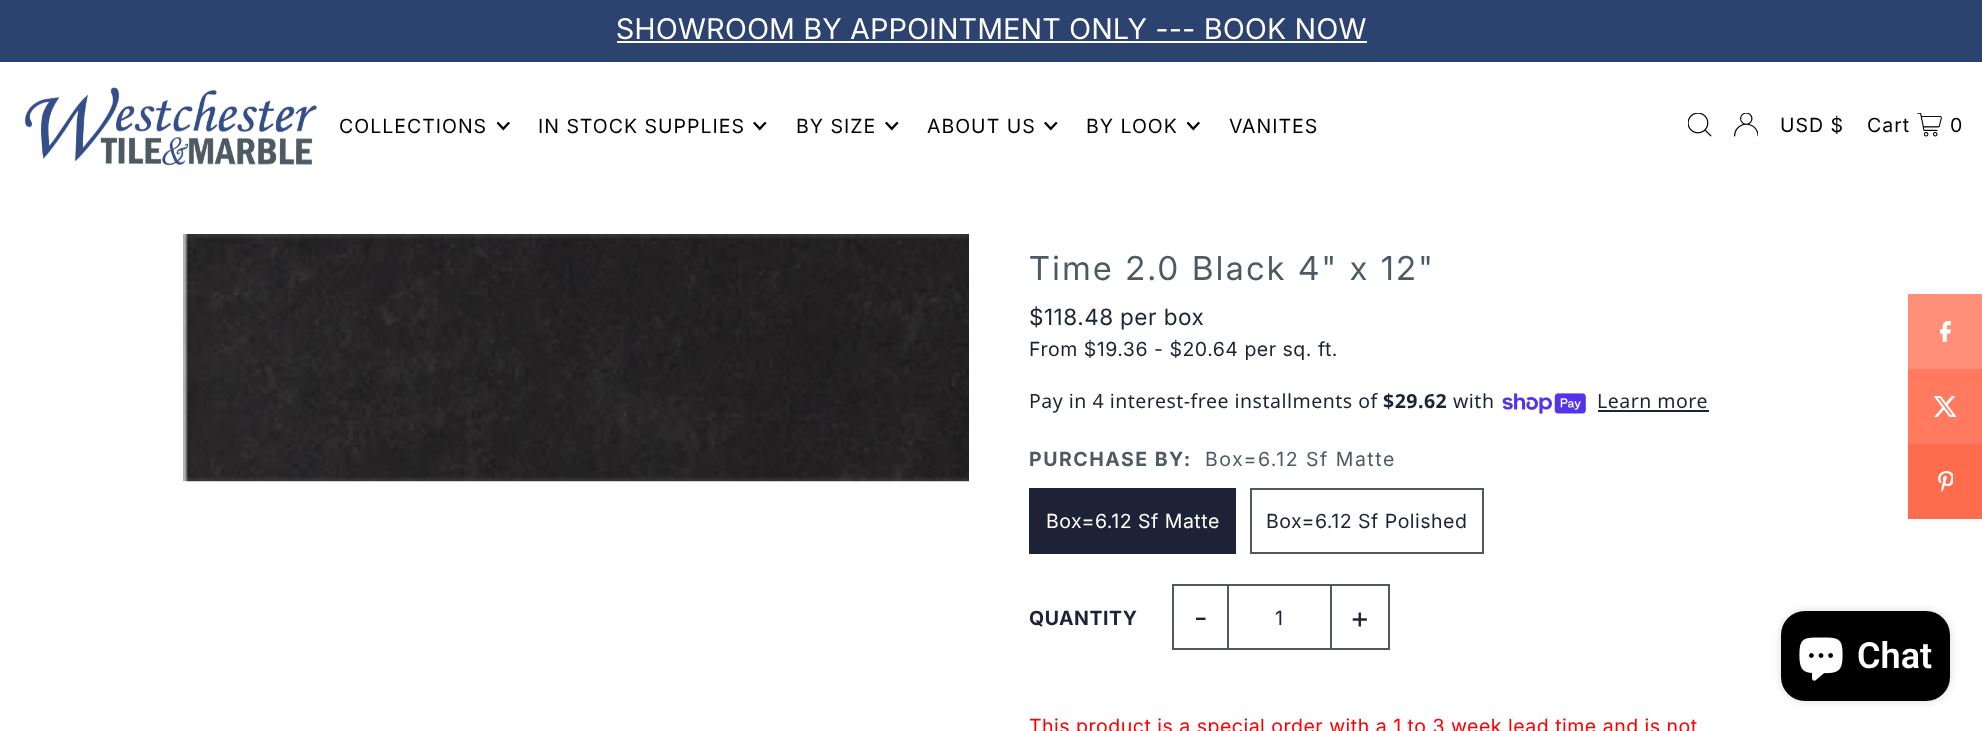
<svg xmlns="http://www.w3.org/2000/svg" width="1982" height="731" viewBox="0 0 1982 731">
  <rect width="100%" height="100%" fill="rgb(255,255,255)"/>
  <rect x="0" y="0" width="1982" height="62" fill="rgb(44,66,111)"/>
  <text x="616" y="39" font-family="'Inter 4'" font-size="28.5" letter-spacing="0.5" fill="rgb(255,255,255)">SHOWROOM BY APPOINTMENT ONLY --- BOOK NOW</text>
  <rect x="617" y="41" width="750" height="2" fill="rgb(255,255,255)"/>
  <image x="25" y="87" width="292" height="79" href="pic1.png"/>
  <text x="339" y="133" font-family="'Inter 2'" font-size="19.5" letter-spacing="1" fill="rgb(0,0,0)">COLLECTIONS</text>
  <image x="497" y="122" width="13" height="9" href="pic2.png"/>
  <text x="538" y="133" font-family="'Inter 2'" font-size="19.5" letter-spacing="1" fill="rgb(0,0,0)">IN STOCK SUPPLIES</text>
  <image x="753" y="122" width="14" height="9" href="pic3.png"/>
  <text x="796" y="133" font-family="'Inter 2'" font-size="19.5" letter-spacing="1" fill="rgb(0,0,0)">BY SIZE</text>
  <image x="885" y="122" width="14" height="9" href="pic3.png"/>
  <text x="927" y="133" font-family="'Inter 2'" font-size="19.5" letter-spacing="1" fill="rgb(0,0,0)">ABOUT US</text>
  <image x="1044" y="122" width="14" height="9" href="pic3.png"/>
  <text x="1086" y="133" font-family="'Inter 2'" font-size="19.5" letter-spacing="1" fill="rgb(0,0,0)">BY LOOK</text>
  <image x="1187" y="122" width="13" height="9" href="pic2.png"/>
  <text x="1229" y="133" font-family="'Inter 2'" font-size="19.5" letter-spacing="1" fill="rgb(0,0,0)">VANITES</text>
  <image x="1688" y="113" width="24" height="24" href="pic4.png"/>
  <image x="1734" y="113" width="24" height="24" href="pic5.png"/>
  <g font-family="'Inter 2'" font-size="19.5" letter-spacing="1" fill="rgb(0,0,0)">
    <text x="1780" y="132">USD $</text>
    <text x="1867" y="132">Cart</text>
  </g>
  <image x="1917" y="113" width="25" height="24" href="pic6.png"/>
  <text x="1950" y="132" font-family="'Inter 2'" font-size="19.5" letter-spacing="1" fill="rgb(0,0,0)">0</text>
  <image x="183" y="234" width="786" height="248" href="pic7.png"/>
  <text x="1029" y="280" font-family="Inter" font-size="33" letter-spacing="2.5" fill="rgb(78,90,99)">Time 2.0 Black 4" x 12"</text>
  <g font-family="'Inter 2'" font-size="22.5" letter-spacing="0.5" fill="rgb(29,34,54)">
    <text x="1029" y="325">$118.48</text>
    <text x="1120" y="325">per box</text>
  </g>
  <text x="1029" y="356" font-family="'Inter 2'" font-size="19.5" letter-spacing="0.5" fill="rgb(29,34,54)">From $19.36 - $20.64 per sq. ft.</text>
  <text x="1029" y="408" font-family="Noto Sans" font-size="19.5" letter-spacing="0.5" fill="rgb(29,34,54)">Pay in 4 interest-free installments of</text>
  <text x="1383" y="408" font-family="Noto Sans" font-size="19.5" font-weight="bold" letter-spacing="0.5" fill="rgb(29,34,54)">$29.62</text>
  <text x="1453" y="408" font-family="Noto Sans" font-size="19.5" letter-spacing="0.5" fill="rgb(29,34,54)">with</text>
  <image x="1502" y="393" width="84" height="21" href="pic8.png"/>
  <text x="1597" y="408" font-family="Noto Sans" font-size="19.5" letter-spacing="0.5" fill="rgb(29,34,54)">Learn more</text>
  <rect x="1598" y="410" width="111" height="2" fill="rgb(29,34,54)"/>
  <text x="1029" y="466" font-family="Inter" font-size="19.5" font-weight="bold" letter-spacing="1.5" fill="rgb(78,90,99)">PURCHASE BY:</text>
  <text x="1205" y="466" font-family="'Inter 2'" font-size="19.5" letter-spacing="1.5" fill="rgb(78,90,99)">Box=6.12 Sf Matte</text>
  <rect x="1029" y="488" width="207" height="66" fill="rgb(29,34,54)"/>
  <text x="1046" y="528" font-family="'Inter 2'" font-size="19.5" letter-spacing="0.5" fill="rgb(255,255,255)">Box=6.12 Sf Matte</text>
  <rect x="1251" y="489" width="232" height="64" fill="none" stroke="rgb(78,90,99)" stroke-width="2"/>
  <text x="1266" y="528" font-family="'Inter 2'" font-size="19.5" letter-spacing="0.5" fill="rgb(29,34,54)">Box=6.12 Sf Polished</text>
  <text x="1029" y="625" font-family="Inter" font-size="19.5" font-weight="bold" letter-spacing="0.5" fill="rgb(29,34,54)">QUANTITY</text>
  <rect x="1172" y="584" width="57" height="2" fill="rgb(78,90,99)"/>
  <rect x="1172" y="648" width="57" height="2" fill="rgb(78,90,99)"/>
  <rect x="1172" y="584" width="2" height="66" fill="rgb(78,90,99)"/>
  <text x="1194" y="628" font-family="'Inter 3'" font-size="30" letter-spacing="1" fill="rgb(29,34,54)">-</text>
  <rect x="1228" y="585" width="103" height="64" fill="none" stroke="rgb(78,90,99)" stroke-width="2"/>
  <text x="1275" y="625" font-family="'Inter 2'" font-size="19.5" letter-spacing="0.5" fill="rgb(29,34,54)">1</text>
  <rect x="1332" y="584" width="57" height="2" fill="rgb(78,90,99)"/>
  <rect x="1388" y="584" width="2" height="66" fill="rgb(78,90,99)"/>
  <rect x="1332" y="648" width="57" height="2" fill="rgb(78,90,99)"/>
  <text x="1350" y="628" font-family="'Inter 3'" font-size="30" letter-spacing="1" fill="rgb(29,34,54)">+</text>
  <text x="1029" y="733" font-family="'Inter 2'" font-size="19.5" letter-spacing="0.5" fill="rgb(255,0,0)">This product is a special order with a 1 to 3 week lead time and is not</text>
  <rect x="1908" y="294" width="74" height="75" fill="rgb(255,143,120)"/>
  <image x="1940" y="321" width="12" height="21" href="pic9.png"/>
  <rect x="1908" y="369" width="74" height="75" fill="rgb(255,122,95)"/>
  <image x="1934" y="396" width="23" height="21" href="pic10.png"/>
  <rect x="1908" y="444" width="74" height="75" fill="rgb(255,107,77)"/>
  <image x="1938" y="471" width="15" height="21" href="pic11.png"/>
  <rect x="1781" y="611" width="169" height="90" rx="24" fill="rgba(0,0,0,0.15)" filter="blur(4px)"/>
  <rect x="1781" y="611" width="169" height="90" rx="24" fill="rgb(0,0,0)"/>
  <image x="1799" y="637" width="44" height="44" href="pic12.png"/>
  <text x="1857" y="668" font-family="Roboto" font-size="36" font-weight="600" fill="rgb(255,255,255)">Chat</text>
</svg>
